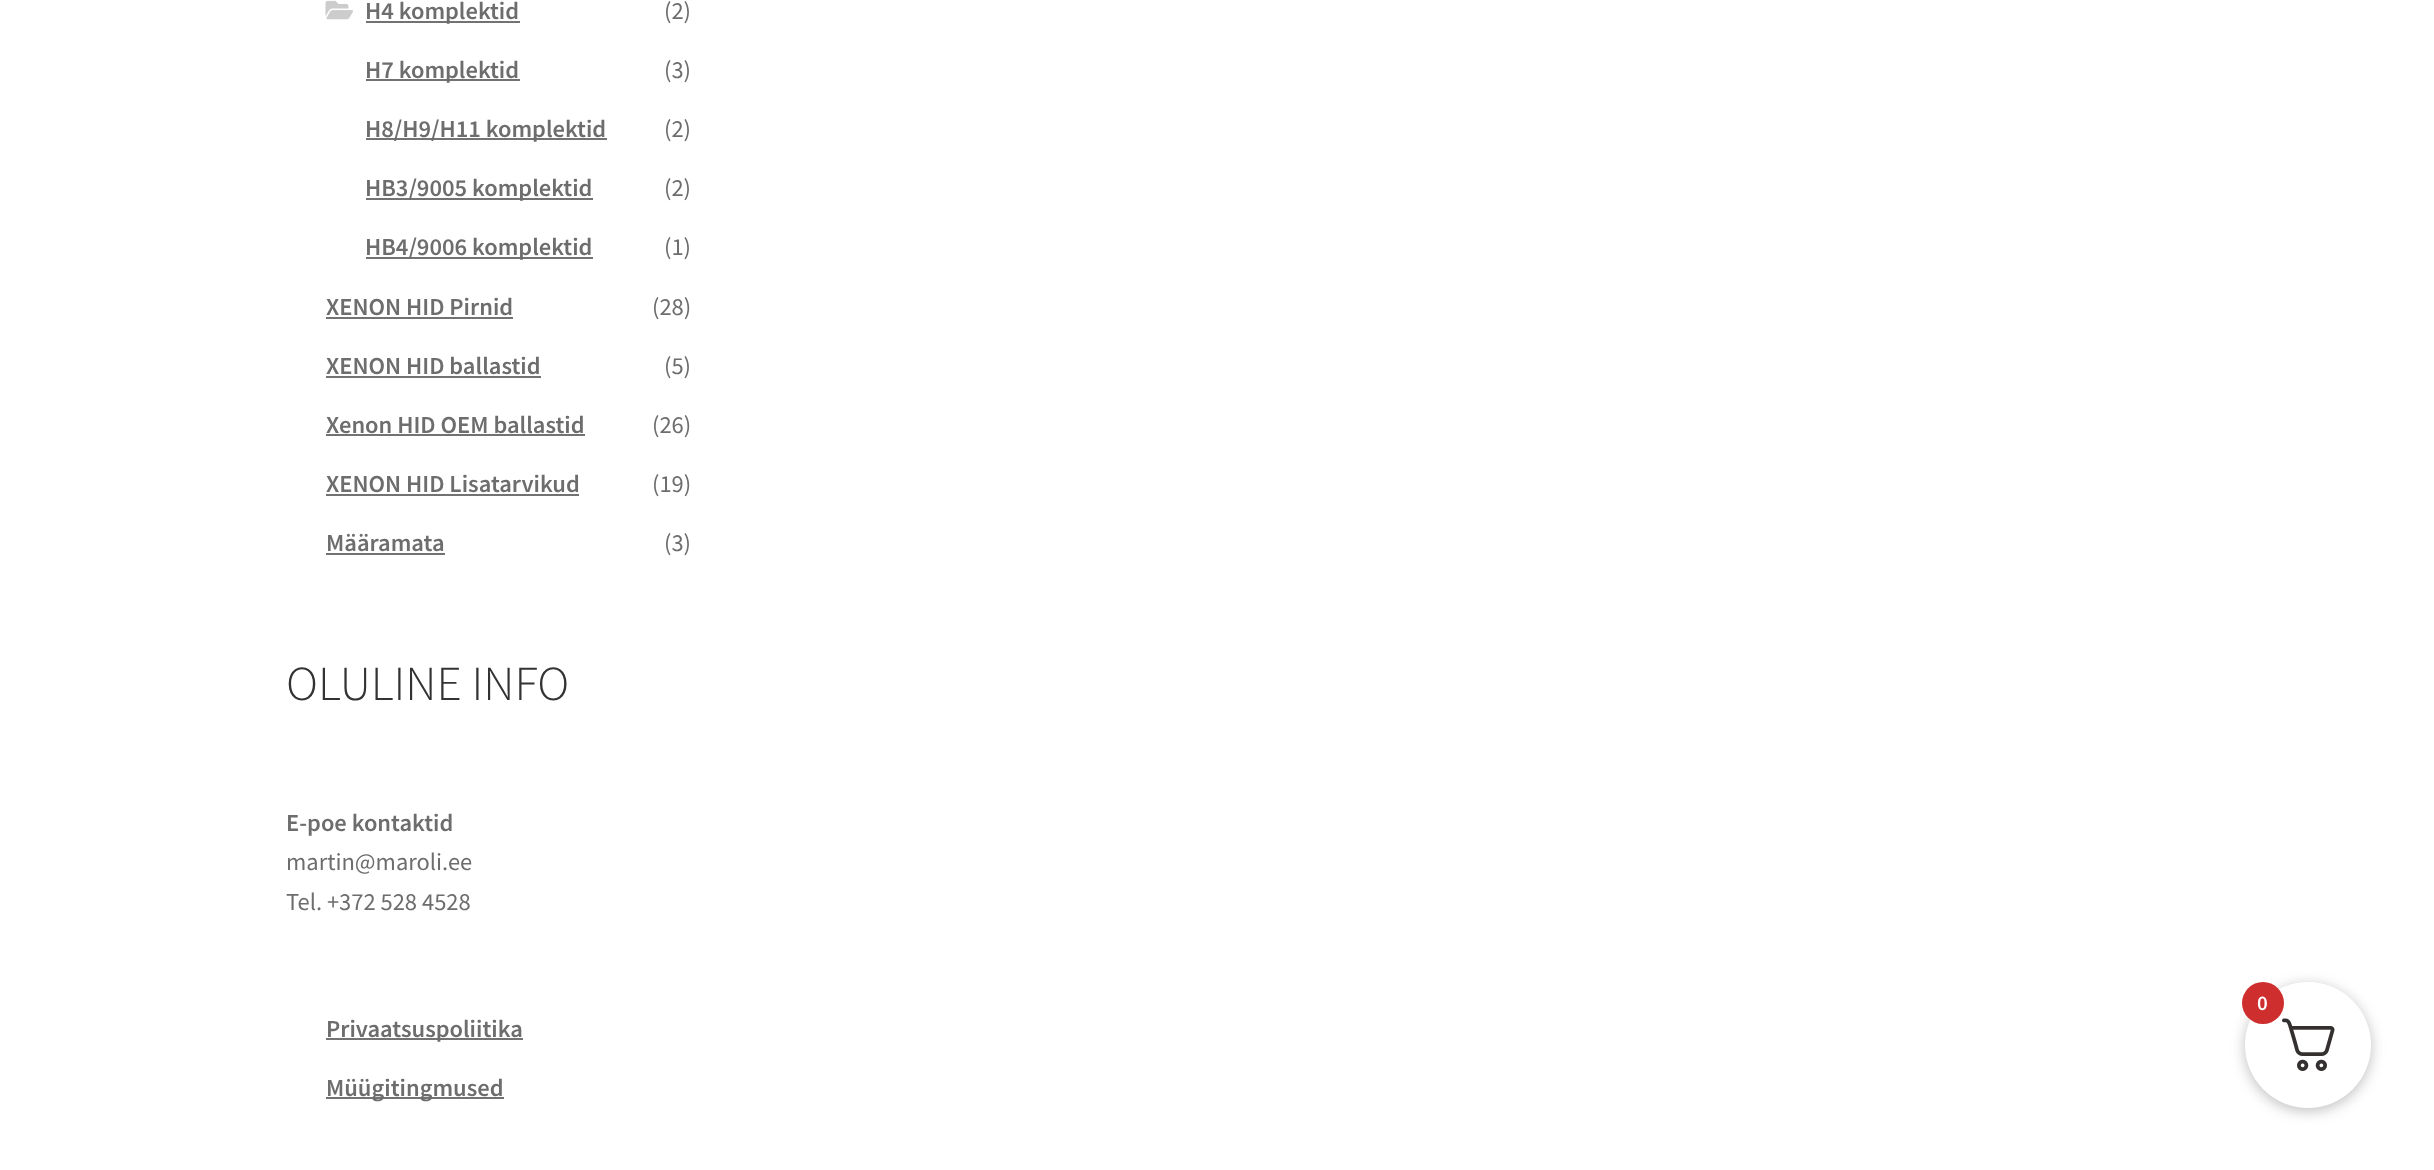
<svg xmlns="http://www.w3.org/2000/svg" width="2434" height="1170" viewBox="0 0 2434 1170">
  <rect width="100%" height="100%" fill="rgb(255,255,255)"/>
  <image x="325" y="0" width="28" height="20" href="pic1.png"/>
  <rect x="366" y="21" width="154" height="2" fill="rgb(114,114,114)"/>
  <text x="365" y="19" font-family="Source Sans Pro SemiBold" font-size="24.5" font-weight="600" fill="rgb(109,109,109)">H4 komplektid</text>
  <text x="664" y="19" font-family="Source Sans Pro" font-size="24.5" fill="rgb(109,109,109)">(2)</text>
  <rect x="366" y="79" width="154" height="2" fill="rgb(114,114,114)"/>
  <text x="365" y="78" font-family="Source Sans Pro SemiBold" font-size="24.5" font-weight="600" fill="rgb(109,109,109)">H7 komplektid</text>
  <text x="664" y="78" font-family="Source Sans Pro" font-size="24.5" fill="rgb(109,109,109)">(3)</text>
  <rect x="366" y="138" width="241" height="2" fill="rgb(114,114,114)"/>
  <text x="365" y="137" font-family="Source Sans Pro SemiBold" font-size="24.5" font-weight="600" fill="rgb(109,109,109)">H8/H9/H11 komplektid</text>
  <text x="664" y="137" font-family="Source Sans Pro" font-size="24.5" fill="rgb(109,109,109)">(2)</text>
  <rect x="366" y="198" width="227" height="2" fill="rgb(114,114,114)"/>
  <text x="365" y="196" font-family="Source Sans Pro SemiBold" font-size="24.5" font-weight="600" fill="rgb(109,109,109)">HB3/9005 komplektid</text>
  <text x="664" y="196" font-family="Source Sans Pro" font-size="24.5" fill="rgb(109,109,109)">(2)</text>
  <rect x="366" y="257" width="227" height="2" fill="rgb(114,114,114)"/>
  <text x="365" y="255" font-family="Source Sans Pro SemiBold" font-size="24.5" font-weight="600" fill="rgb(109,109,109)">HB4/9006 komplektid</text>
  <text x="664" y="255" font-family="Source Sans Pro" font-size="24.5" fill="rgb(109,109,109)">(1)</text>
  <text x="326" y="315" font-family="Source Sans Pro SemiBold" font-size="24.5" font-weight="600" fill="rgb(109,109,109)">XENON HID Pirnid</text>
  <rect x="326" y="317" width="187" height="2" fill="rgb(114,114,114)"/>
  <text x="652" y="315" font-family="Source Sans Pro" font-size="24.5" fill="rgb(109,109,109)">(28)</text>
  <text x="326" y="374" font-family="Source Sans Pro SemiBold" font-size="24.5" font-weight="600" fill="rgb(109,109,109)">XENON HID ballastid</text>
  <rect x="326" y="376" width="215" height="2" fill="rgb(114,114,114)"/>
  <text x="664" y="374" font-family="Source Sans Pro" font-size="24.5" fill="rgb(109,109,109)">(5)</text>
  <text x="326" y="433" font-family="Source Sans Pro SemiBold" font-size="24.5" font-weight="600" fill="rgb(109,109,109)">Xenon HID OEM ballastid</text>
  <rect x="326" y="434" width="259" height="2" fill="rgb(114,114,114)"/>
  <text x="652" y="433" font-family="Source Sans Pro" font-size="24.5" fill="rgb(109,109,109)">(26)</text>
  <text x="326" y="492" font-family="Source Sans Pro SemiBold" font-size="24.5" font-weight="600" fill="rgb(109,109,109)">XENON HID Lisatarvikud</text>
  <rect x="326" y="494" width="253" height="2" fill="rgb(114,114,114)"/>
  <text x="652" y="492" font-family="Source Sans Pro" font-size="24.5" fill="rgb(109,109,109)">(19)</text>
  <text x="326" y="551" font-family="Source Sans Pro SemiBold" font-size="24.5" font-weight="600" fill="rgb(109,109,109)">Määramata</text>
  <rect x="326" y="553" width="119" height="2" fill="rgb(114,114,114)"/>
  <text x="664" y="551" font-family="Source Sans Pro" font-size="24.5" fill="rgb(109,109,109)">(3)</text>
  <text x="286" y="700" font-family="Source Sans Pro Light" font-size="49" font-weight="300" fill="rgb(51,51,51)">OLULINE INFO</text>
  <text x="286" y="831" font-family="Source Sans Pro SemiBold" font-size="24.5" font-weight="600" fill="rgb(109,109,109)">E-poe kontaktid</text>
  <g font-family="Source Sans Pro" font-size="24.5" fill="rgb(109,109,109)">
    <text>
      <tspan x="286" y="870">martin@maroli.ee</tspan>
      <tspan x="286" y="910">Tel. +372 528 4528</tspan>
    </text>
  </g>
  <rect x="326" y="1038" width="197" height="2" fill="rgb(114,114,114)"/>
  <text x="326" y="1037" font-family="Source Sans Pro SemiBold" font-size="24.5" font-weight="600" fill="rgb(109,109,109)">Privaatsuspoliitika</text>
  <rect x="326" y="1097" width="178" height="2" fill="rgb(114,114,114)"/>
  <text x="326" y="1096" font-family="Source Sans Pro SemiBold" font-size="24.5" font-weight="600" fill="rgb(109,109,109)">Müügitingmused</text>
  <rect x="2245" y="985" width="126" height="126" rx="63" fill="rgba(0,0,0,0.25)" filter="blur(7px)"/>
  <circle cx="2308" cy="1045" r="63" fill="rgb(255,255,255)"/>
  <image x="2282" y="1018" width="53" height="53" href="pic2.png"/>
  <circle cx="2263" cy="1003" r="21" fill="rgb(207,46,46)"/>
  <text x="2257" y="1010" font-family="Source Sans Pro SemiBold" font-size="21" font-weight="600" fill="rgb(255,255,255)">0</text>
</svg>
